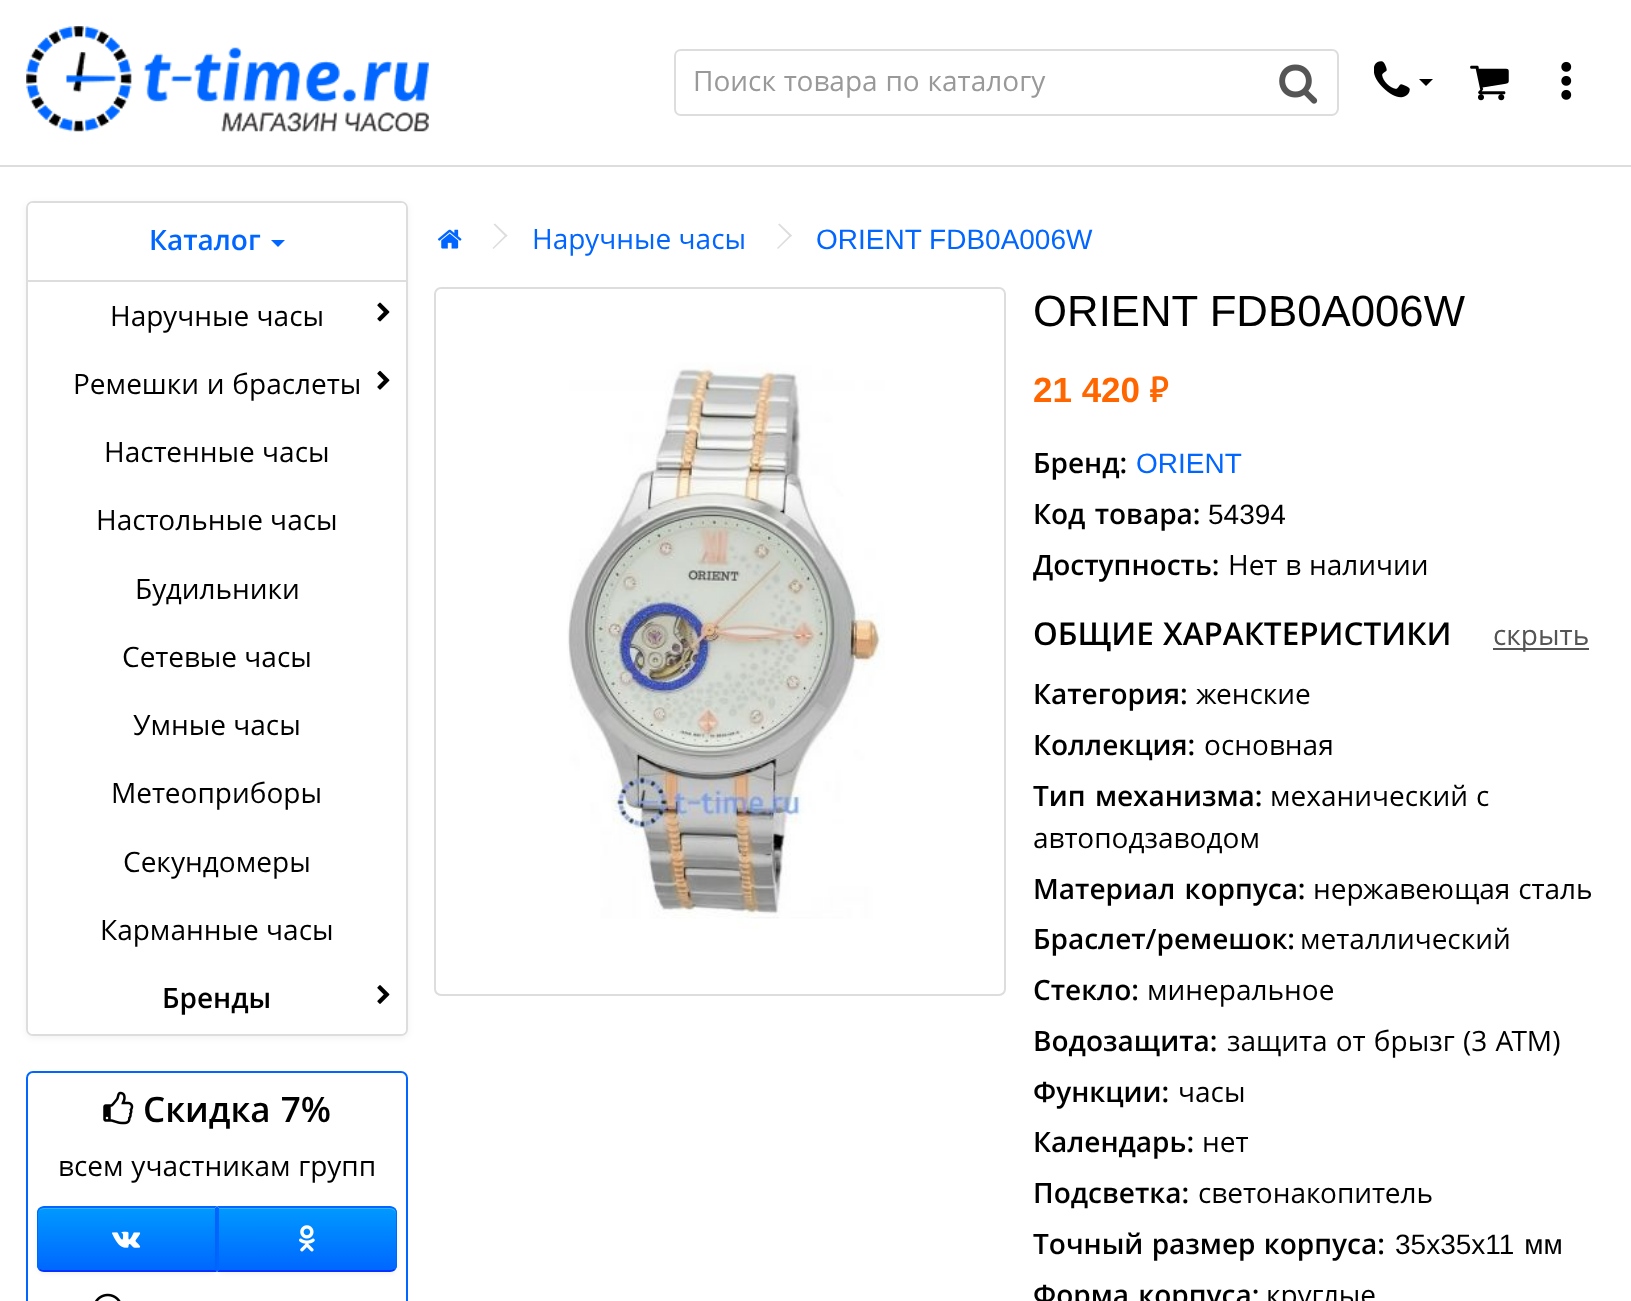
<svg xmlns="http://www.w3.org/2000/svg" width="1631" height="1301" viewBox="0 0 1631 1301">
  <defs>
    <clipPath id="clip1"><path d="M44 1206H217V1272H44C40 1272 37 1269 37 1265V1213C37 1209 40 1206 44 1206Z"/></clipPath>
    <linearGradient id="g1" gradientUnits="userSpaceOnUse" x1="127" y1="1208" x2="127" y2="1271"><stop offset="0" stop-color="rgb(0,153,255)"/><stop offset="1" stop-color="rgb(0,102,255)"/></linearGradient>
    <clipPath id="clip2"><path d="M217 1206H390C394 1206 397 1209 397 1213V1265C397 1269 394 1272 390 1272H217Z"/></clipPath>
    <linearGradient id="g2" gradientUnits="userSpaceOnUse" x1="307" y1="1208" x2="307" y2="1271"><stop offset="0" stop-color="rgb(0,153,255)"/><stop offset="1" stop-color="rgb(0,102,255)"/></linearGradient>
  </defs>
  <rect width="100%" height="100%" fill="rgb(255,255,255)"/>
  <rect x="0" y="165" width="1631" height="2" fill="rgb(221,221,221)"/>
  <image x="26" y="26" width="403" height="106" href="pic1.png"/>
  <path d="M681 50H1261V115H681C677.5 115 675 112.5 675 109V56C675 52.5 677.5 50 681 50Z" fill="none" stroke="rgb(221,221,221)" stroke-width="2"/>
  <text x="693" y="91" word-spacing="0.5" font-family="Open Sans" font-size="28" fill="rgb(153,153,153)">Поиск товара по каталогу</text>
  <path d="M1260 49H1332C1336 49 1339 52 1339 56V109C1339 113 1336 116 1332 116H1260Z" fill="rgb(255,255,255)"/>
  <path d="M1260 49H1332C1336 49 1339 52 1339 56V108C1339 112 1336 116 1332 116H1260ZM1260 51H1332C1335 51 1337 53 1337 56V108C1337 111 1335 114 1332 114H1260Z" fill="rgb(221,221,221)" fill-rule="evenodd"/>
  <image x="1279" y="64" width="39" height="40" href="pic2.png"/>
  <image x="1374" y="61" width="36" height="37" href="pic3.png"/>
  <path d="M1419 79H1433L1426 86Z" fill="rgb(0,0,0)"/>
  <image x="1470" y="65" width="39" height="36" href="pic4.png"/>
  <image x="1561" y="61" width="11" height="39" href="pic5.png"/>
  <rect x="26" y="203" width="382" height="835" rx="7" fill="rgba(0,0,0,0.05)" filter="blur(3.5px)"/>
  <rect x="27" y="202" width="380" height="833" rx="6" fill="rgb(255,255,255)" stroke="rgb(221,221,221)" stroke-width="2"/>
  <path d="M33 203H401C404 203 406 205 406 208V282H28V208C28 205 30 203 33 203Z" fill="rgb(255,255,255)"/>
  <rect x="28" y="280" width="378" height="2" fill="rgb(221,221,221)"/>
  <text x="149" y="250" font-family="Open Sans" font-size="28" font-weight="600" fill="rgb(0,102,255)">Каталог</text>
  <path d="M271 240H285L278 247Z" fill="rgb(0,102,255)"/>
  <text x="110" y="326" font-family="Open Sans" font-size="28" fill="rgb(0,0,0)">Наручные часы</text>
  <image x="377" y="302" width="13" height="20" href="pic6.png"/>
  <text x="73" y="394" word-spacing="0.5" font-family="Open Sans" font-size="28" fill="rgb(0,0,0)">Ремешки и браслеты</text>
  <image x="377" y="370" width="13" height="20" href="pic7.png"/>
  <g font-family="Open Sans" font-size="28" fill="rgb(0,0,0)">
    <text x="104" y="462">Настенные часы</text>
    <text x="96" y="530">Настольные часы</text>
    <text x="135" y="599">Будильники</text>
    <text x="122" y="667">Сетевые часы</text>
    <text x="133" y="735">Умные часы</text>
    <text x="111" y="803">Метеоприборы</text>
    <text x="123" y="872">Секундомеры</text>
    <text x="100" y="940">Карманные часы</text>
  </g>
  <path d="M28 964H406V1029C406 1032 404 1034 401 1034H33C30 1034 28 1032 28 1029Z" fill="rgb(255,255,255)"/>
  <text x="162" y="1008" font-family="Open Sans" font-size="28" font-weight="600" fill="rgb(0,0,0)">Бренды</text>
  <image x="377" y="985" width="13" height="19" href="pic8.png"/>
  <rect x="27" y="1072" width="380" height="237" rx="6" fill="none" stroke="rgb(0,102,255)" stroke-width="2"/>
  <image x="103" y="1091" width="31" height="34" href="pic9.png"/>
  <text x="143" y="1122" word-spacing="1" font-family="Open Sans" font-size="35" font-weight="600" fill="rgb(0,0,0)">Скидка 7%</text>
  <text x="58" y="1176" word-spacing="0.5" font-family="Open Sans" font-size="28" fill="rgb(0,0,0)">всем участникам групп</text>
  <rect x="37" y="1208" width="180" height="66" rx="7" fill="rgba(0,0,0,0.05)" filter="blur(2px)"/>
  <g clip-path="url(#clip1)">
    <rect x="37" y="1208" width="179" height="63" fill="url(#g1)"/>
  </g>
  <path d="M44 1209H215V1208H44C42 1208 40 1209 39 1211C40 1210 42 1209 44 1209Z" fill="rgb(51,173,255)"/>
  <path d="M44 1206C42 1206 40 1207 39 1208L40 1209C41 1208 43 1208 44 1208H215L217 1206Z" fill="rgb(0,102,255)"/>
  <path d="M217 1272V1206L215 1208V1270Z" fill="rgb(0,102,255)"/>
  <path d="M217 1272H44C42 1272 40 1271 39 1270L40 1269C41 1270 43 1270 44 1270H215Z" fill="rgb(0,51,255)"/>
  <path d="M39 1208C38 1209 37 1211 37 1213V1265C37 1267 38 1269 39 1270L40 1269C39 1268 38 1267 38 1265V1213C38 1211 39 1210 40 1209Z" fill="rgb(0,102,255)"/>
  <image x="112" y="1231" width="29" height="17" href="pic10.png"/>
  <rect x="217" y="1208" width="180" height="66" rx="7" fill="rgba(0,0,0,0.05)" filter="blur(2px)"/>
  <g clip-path="url(#clip2)">
    <rect x="218" y="1208" width="179" height="63" fill="url(#g2)"/>
  </g>
  <path d="M219 1209H390C393 1209 396 1212 396 1214C396 1211 394 1208 391 1208H219Z" fill="rgb(51,173,255)"/>
  <path d="M395 1208C394 1207 392 1206 390 1206H217L219 1208H390C391 1208 393 1208 394 1209Z" fill="rgb(0,102,255)"/>
  <path d="M395 1208C396 1209 397 1211 397 1213V1265C397 1267 396 1269 395 1270L394 1269C395 1268 396 1267 396 1265V1213C396 1211 395 1210 394 1209Z" fill="rgb(0,102,255)"/>
  <path d="M395 1270C394 1271 392 1272 390 1272H217L219 1270H390C391 1270 393 1270 394 1269Z" fill="rgb(0,51,255)"/>
  <path d="M219 1208V1270L217 1272V1206Z" fill="rgb(0,102,255)"/>
  <image x="299" y="1225" width="16" height="27" href="pic11.png"/>
  <image x="95" y="1293" width="26" height="8" href="pic12.png"/>
  <image x="437" y="229" width="25" height="20" href="pic13.png"/>
  <path d="M493.5 224.5L495 223.5L507.5 235.5L506 237Z" fill="rgb(221,221,221)"/>
  <path d="M492.5 248L506 234.5L507.5 235.5L493.5 249Z" fill="rgb(221,221,221)"/>
  <text x="532" y="249" font-family="Open Sans" font-size="28" fill="rgb(0,102,255)">Наручные часы</text>
  <path d="M778 224.5L779.5 223.5L792 235.5L790.5 237Z" fill="rgb(221,221,221)"/>
  <path d="M777 248L790.5 234.5L792 235.5L778 249Z" fill="rgb(221,221,221)"/>
  <text x="816" y="249" font-family="Liberation Sans" font-size="28" fill="rgb(0,102,255)">ORIENT FDB0A006W</text>
  <rect x="435" y="288" width="570" height="707" rx="6" fill="none" stroke="rgb(221,221,221)" stroke-width="2"/>
  <image x="567" y="362" width="318" height="567" href="pic14.png"/>
  <text x="1033" y="326" font-family="Liberation Sans" font-size="43.75" fill="rgb(0,0,0)">ORIENT FDB0A006W</text>
  <text x="1033" y="402" font-family="Liberation Sans" font-size="35" font-weight="bold" fill="rgb(255,102,0)">21 420</text>
  <text x="1149" y="402" font-family="PT Sans" font-size="35" font-weight="bold" fill="rgb(255,102,0)">₽</text>
  <text x="1033" y="473" font-family="Open Sans" font-size="28" font-weight="600" fill="rgb(0,0,0)">Бренд:</text>
  <text x="1136" y="473" font-family="Liberation Sans" font-size="28" fill="rgb(0,102,255)">ORIENT</text>
  <text x="1033" y="524" word-spacing="2" font-family="Open Sans" font-size="28" font-weight="600" fill="rgb(0,0,0)">Код товара:</text>
  <text x="1208" y="524" font-family="Liberation Sans" font-size="28" fill="rgb(0,0,0)">54394</text>
  <text x="1033" y="575" font-family="Open Sans" font-size="28" font-weight="600" fill="rgb(0,0,0)">Доступность:</text>
  <text x="1228" y="575" word-spacing="0.5" font-family="Open Sans" font-size="28" fill="rgb(0,0,0)">Нет в наличии</text>
  <text x="1033" y="645" word-spacing="1" font-family="Open Sans" font-size="31.5" font-weight="600" fill="rgb(0,0,0)">ОБЩИЕ ХАРАКТЕРИСТИКИ</text>
  <rect x="1493" y="648" width="96" height="2" fill="rgb(85,85,85)"/>
  <text x="1493" y="645" font-family="Open Sans" font-size="28" fill="rgb(85,85,85)">скрыть</text>
  <text x="1033" y="704" font-family="Open Sans" font-size="28" font-weight="600" fill="rgb(0,0,0)">Категория:</text>
  <text x="1196" y="704" font-family="Open Sans" font-size="28" fill="rgb(0,0,0)">женские</text>
  <text x="1033" y="755" font-family="Open Sans" font-size="28" font-weight="600" fill="rgb(0,0,0)">Коллекция:</text>
  <text x="1204" y="755" font-family="Open Sans" font-size="28" fill="rgb(0,0,0)">основная</text>
  <text x="1033" y="806" word-spacing="2" font-family="Open Sans" font-size="28" font-weight="600" fill="rgb(0,0,0)">Тип механизма:</text>
  <g font-family="Open Sans" font-size="28" fill="rgb(0,0,0)">
    <text x="1270" y="806" word-spacing="0.5">механический с</text>
    <text x="1033" y="848">автоподзаводом</text>
  </g>
  <text x="1033" y="899" word-spacing="2" font-family="Open Sans" font-size="28" font-weight="600" fill="rgb(0,0,0)">Материал корпуса:</text>
  <text x="1313" y="899" word-spacing="0.5" font-family="Open Sans" font-size="28" fill="rgb(0,0,0)">нержавеющая сталь</text>
  <text x="1033" y="949" font-family="Open Sans" font-size="28" font-weight="600" fill="rgb(0,0,0)">Браслет/ремешок:</text>
  <text x="1300" y="949" font-family="Open Sans" font-size="28" fill="rgb(0,0,0)">металлический</text>
  <text x="1033" y="1000" font-family="Open Sans" font-size="28" font-weight="600" fill="rgb(0,0,0)">Стекло:</text>
  <text x="1147" y="1000" font-family="Open Sans" font-size="28" fill="rgb(0,0,0)">минеральное</text>
  <text x="1033" y="1051" font-family="Open Sans" font-size="28" font-weight="600" fill="rgb(0,0,0)">Водозащита:</text>
  <text x="1227" y="1051" word-spacing="1" font-family="Open Sans" font-size="28" fill="rgb(0,0,0)">защита от брызг (3 АТМ)</text>
  <text x="1033" y="1102" font-family="Open Sans" font-size="28" font-weight="600" fill="rgb(0,0,0)">Функции:</text>
  <text x="1178" y="1102" font-family="Open Sans" font-size="28" fill="rgb(0,0,0)">часы</text>
  <text x="1033" y="1152" font-family="Open Sans" font-size="28" font-weight="600" fill="rgb(0,0,0)">Календарь:</text>
  <text x="1202" y="1152" font-family="Open Sans" font-size="28" fill="rgb(0,0,0)">нет</text>
  <text x="1033" y="1203" font-family="Open Sans" font-size="28" font-weight="600" fill="rgb(0,0,0)">Подсветка:</text>
  <text x="1198" y="1203" font-family="Open Sans" font-size="28" fill="rgb(0,0,0)">светонакопитель</text>
  <text x="1033" y="1254" word-spacing="1" font-family="Open Sans" font-size="28" font-weight="600" fill="rgb(0,0,0)">Точный размер корпуса:</text>
  <text x="1395" y="1254" word-spacing="2" font-family="Liberation Sans" font-size="28" fill="rgb(0,0,0)">35х35х11 мм</text>
  <text x="1033" y="1305" word-spacing="2" font-family="Open Sans" font-size="28" font-weight="600" fill="rgb(0,0,0)">Форма корпуса:</text>
  <text x="1266" y="1305" font-family="Open Sans" font-size="28" fill="rgb(0,0,0)">круглые</text>
</svg>
